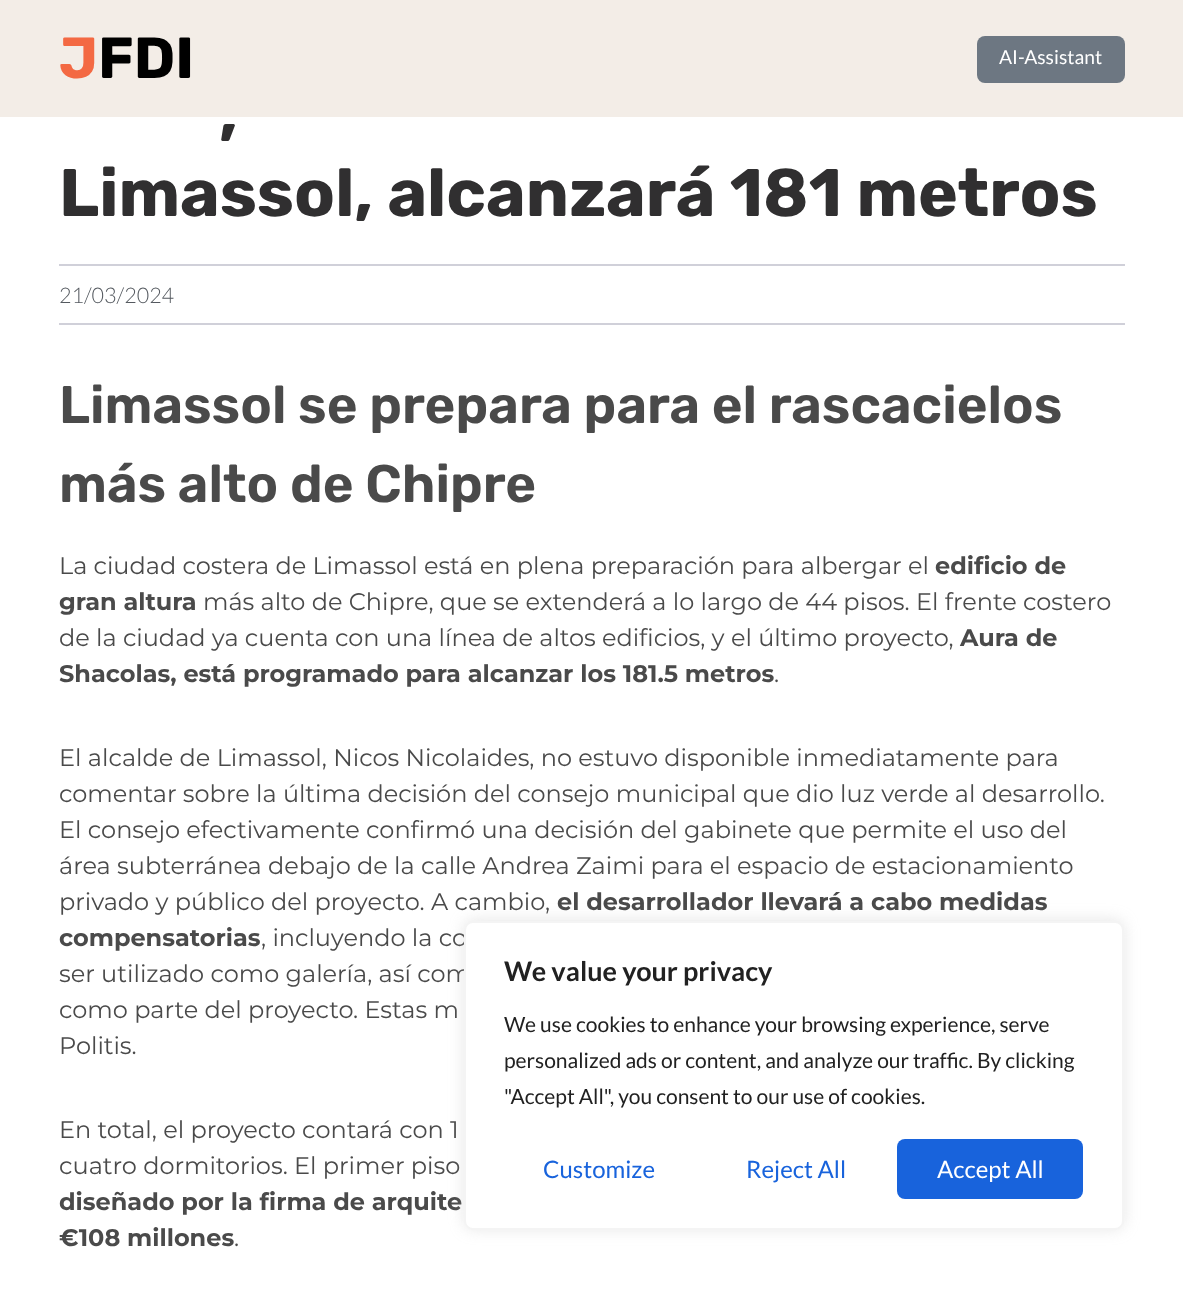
<svg xmlns="http://www.w3.org/2000/svg" width="1183" height="1289" viewBox="0 0 1183 1289">
  <rect width="100%" height="100%" fill="rgb(255,255,255)"/>
  <rect x="0" y="0" width="1183" height="117" fill="rgb(243,237,231)"/>
  <text x="59" y="78" font-family="Rubik" font-size="58" font-weight="bold" fill="rgb(243,105,67)">J</text>
  <text x="98" y="78" font-family="Rubik" font-size="58" font-weight="bold" fill="rgb(0,0,0)">FDI</text>
  <rect x="977" y="36" width="148" height="47" rx="8" fill="rgb(109,119,130)"/>
  <text x="999" y="64" font-family="Lato" font-size="19.25" fill="rgb(255,255,255)">AI-Assistant</text>
  <g font-family="Rubik" font-size="67.25" font-weight="bold" fill="rgb(48,47,48)">
    <text x="219" y="136">,</text>
    <text x="59" y="216">Limassol, alcanzará 181 metros</text>
  </g>
  <rect x="59" y="264" width="1066" height="2" fill="rgb(208,208,217)"/>
  <rect x="59" y="323" width="1066" height="2" fill="rgb(208,208,217)"/>
  <text x="59" y="303" font-family="Lato" font-size="21.5" font-weight="300" fill="rgb(84,89,95)">21/03/2024</text>
  <g font-family="Rubik" font-size="52.75" font-weight="600" fill="rgb(74,74,74)">
    <text>
      <tspan x="59" y="423">Limassol se prepara para el rascacielos</tspan>
      <tspan x="59" y="502">más alto de Chipre</tspan>
    </text>
  </g>
  <text x="59" y="574" font-family="Montserrat" font-size="24" fill="rgb(74,74,74)">La ciudad costera de Limassol está en plena preparación para albergar el</text>
  <g font-family="Montserrat" font-size="24" font-weight="bold" fill="rgb(74,74,74)">
    <text x="935" y="574">edificio de</text>
    <text x="59" y="610">gran altura</text>
  </g>
  <g font-family="Montserrat" font-size="24" fill="rgb(74,74,74)">
    <text x="203" y="610">más alto de Chipre, que se extenderá a lo largo de 44 pisos. El frente costero</text>
    <text x="59" y="646">de la ciudad ya cuenta con una línea de altos edificios, y el último proyecto,</text>
  </g>
  <g font-family="Montserrat" font-size="24" font-weight="bold" fill="rgb(74,74,74)">
    <text x="960" y="646">Aura de</text>
    <text x="59" y="682">Shacolas, está programado para alcanzar los 181.5 metros</text>
  </g>
  <g font-family="Montserrat" font-size="24" fill="rgb(74,74,74)">
    <text x="774" y="682">.</text>
    <text>
      <tspan x="59" y="766">El alcalde de Limassol, Nicos Nicolaides, no estuvo disponible inmediatamente para</tspan>
      <tspan x="59" y="802">comentar sobre la última decisión del consejo municipal que dio luz verde al desarrollo.</tspan>
      <tspan x="59" y="838">El consejo efectivamente confirmó una decisión del gabinete que permite el uso del</tspan>
      <tspan x="59" y="874">área subterránea debajo de la calle Andrea Zaimi para el espacio de estacionamiento</tspan>
      <tspan x="59" y="910">privado y público del proyecto. A cambio,</tspan>
    </text>
  </g>
  <g font-family="Montserrat" font-size="24" font-weight="bold" fill="rgb(74,74,74)">
    <text x="557" y="910">el desarrollador llevará a cabo medidas</text>
    <text x="59" y="946">compensatorias</text>
  </g>
  <g font-family="Montserrat" font-size="24" fill="rgb(74,74,74)">
    <text x="261" y="946">, incluyendo la co</text>
    <text>
      <tspan x="59" y="982">ser utilizado como galería, así com</tspan>
      <tspan x="59" y="1018">como parte del proyecto. Estas m</tspan>
      <tspan x="59" y="1054">Politis.</tspan>
    </text>
    <text>
      <tspan x="59" y="1138">En total, el proyecto contará con 1</tspan>
      <tspan x="59" y="1174">cuatro dormitorios. El primer piso</tspan>
    </text>
  </g>
  <g font-family="Montserrat" font-size="24" font-weight="bold" fill="rgb(74,74,74)">
    <text>
      <tspan x="59" y="1210">diseñado por la firma de arquite</tspan>
      <tspan x="59" y="1246">€108 millones</tspan>
    </text>
  </g>
  <text x="234" y="1246" font-family="Montserrat" font-size="24" fill="rgb(74,74,74)">.</text>
  <rect x="464" y="920" width="660" height="309" rx="9" fill="rgba(172,171,171,0.3)" filter="blur(7.5px)"/>
  <rect x="465" y="922" width="658" height="307" rx="8" fill="rgb(255,255,255)" stroke="rgb(244,244,244)" stroke-width="2"/>
  <text x="504" y="981" font-family="Lato" font-size="27" font-weight="bold" fill="rgb(33,33,33)">We value your privacy</text>
  <g font-family="Lato" font-size="21" fill="rgb(33,33,33)">
    <text>
      <tspan x="504" y="1032">We use cookies to enhance your browsing experience, serve</tspan>
      <tspan x="504" y="1068">personalized ads or content, and analyze our traffic. By clicking</tspan>
      <tspan x="504" y="1104">"Accept All", you consent to our use of cookies.</tspan>
    </text>
  </g>
  <g font-family="Lato" font-size="24" fill="rgb(24,99,220)">
    <text x="543" y="1178">Customize</text>
    <text x="746" y="1178">Reject All</text>
  </g>
  <rect x="897" y="1139" width="186" height="60" rx="8" fill="rgb(24,99,220)"/>
  <text x="937" y="1178" font-family="Lato" font-size="24" fill="rgb(255,255,255)">Accept All</text>
</svg>
